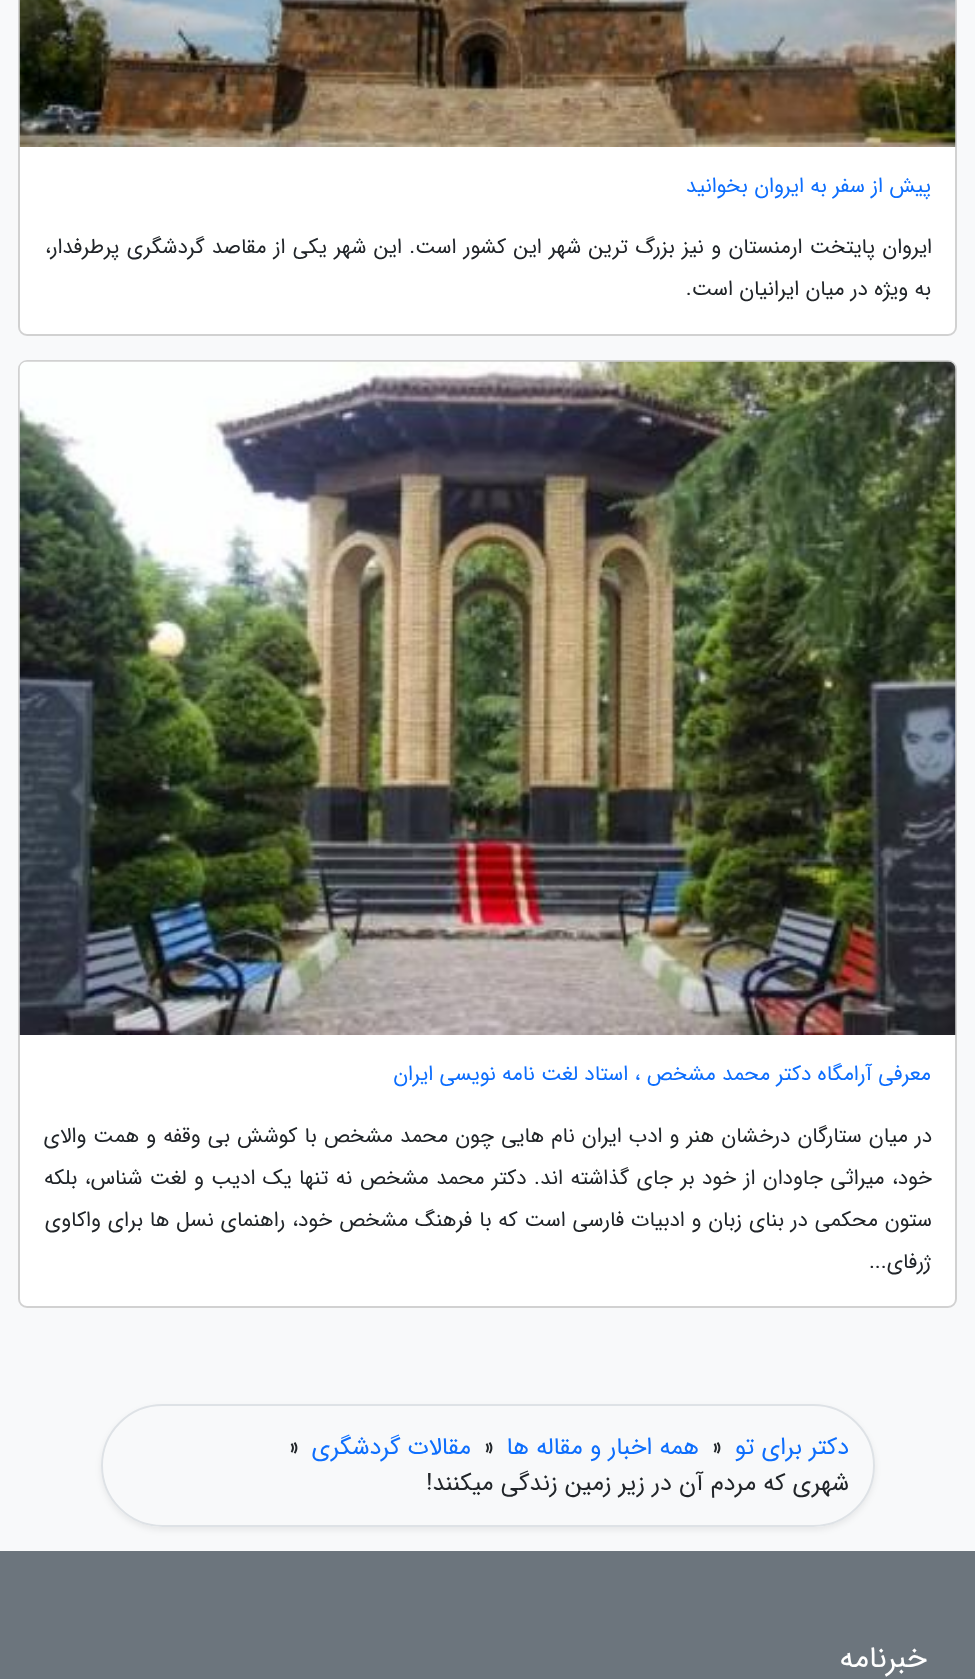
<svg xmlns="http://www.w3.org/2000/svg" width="975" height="1679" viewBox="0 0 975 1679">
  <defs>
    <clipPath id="clip1"><path d="M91 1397H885V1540H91ZM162.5 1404H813.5C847.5 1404 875 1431.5 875 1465.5C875 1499.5 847.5 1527 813.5 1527H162.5C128.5 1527 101 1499.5 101 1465.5C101 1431.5 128.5 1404 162.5 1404Z" clip-rule="evenodd"/></clipPath>
  </defs>
  <rect width="100%" height="100%" fill="rgb(248,249,250)"/>
  <rect x="18" y="-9" width="939" height="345" rx="9" fill="rgb(255,255,255)"/>
  <rect x="19" y="-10" width="937" height="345" rx="8" fill="none" stroke="rgba(0,0,0,0.18)" stroke-width="2"/>
  <image x="19" y="0" width="937" height="147" href="pic1.png"/>
  <text x="931" y="192" font-family="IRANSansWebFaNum" font-size="21" direction="rtl" fill="rgb(13,110,253)">پیش از سفر به ایروان بخوانید</text>
  <g font-family="IRANSansWebFaNum" font-size="21" direction="rtl" fill="rgb(33,37,41)">
    <text x="932" y="253" word-spacing="1">ایروان پایتخت ارمنستان و نیز بزرگ ترین شهر این کشور است. این شهر یکی از مقاصد گردشگری پرطرفدار،</text>
    <text x="931" y="295">به ویژه در میان ایرانیان است.</text>
  </g>
  <rect x="18" y="360" width="939" height="948" rx="9" fill="rgb(255,255,255)"/>
  <rect x="19" y="361" width="937" height="946" rx="8" fill="none" stroke="rgba(0,0,0,0.18)" stroke-width="2"/>
  <image x="19" y="361" width="937" height="674" href="pic2.png"/>
  <text x="931" y="1080" font-family="IRANSansWebFaNum" font-size="21" direction="rtl" fill="rgb(13,110,253)">معرفی آرامگاه دکتر محمد مشخص ، استاد لغت نامه نویسی ایران</text>
  <g font-family="IRANSansWebFaNum" font-size="21" direction="rtl" fill="rgb(33,37,41)">
    <text x="932" y="1142" word-spacing="0.75">در میان ستارگان درخشان هنر و ادب ایران نام هایی چون محمد مشخص با کوشش بی وقفه و همت والای</text>
    <text x="932" y="1184" word-spacing="1.1">خود، میراثی جاودان از خود بر جای گذاشته اند. دکتر محمد مشخص نه تنها یک ادیب و لغت شناس، بلکه</text>
    <text x="932" y="1226" word-spacing="0.5">ستون محکمی در بنای زبان و ادبیات فارسی است که با فرهنگ مشخص خود، راهنمای نسل ها برای واکاوی</text>
    <text x="931" y="1268">ژرفای...</text>
  </g>
  <g clip-path="url(#clip1)">
    <rect x="101" y="1407" width="774" height="123" rx="61.5" fill="rgba(0,0,0,0.07)" filter="blur(3px)"/>
  </g>
  <rect x="102" y="1405" width="772" height="121" rx="60.5" fill="none" stroke="rgb(222,226,230)" stroke-width="2"/>
  <text x="849" y="1454" font-family="IRANSansWebFaNum" font-size="24" direction="rtl" fill="rgb(13,110,253)">دکتر برای تو</text>
  <text x="711" y="1454" font-family="IRANSansWebFaNum" font-size="24" fill="rgb(33,37,41)">»</text>
  <text x="699" y="1454" font-family="IRANSansWebFaNum" font-size="24" direction="rtl" fill="rgb(13,110,253)">همه اخبار و مقاله ها</text>
  <text x="483" y="1454" font-family="IRANSansWebFaNum" font-size="24" fill="rgb(33,37,41)">»</text>
  <text x="471" y="1454" font-family="IRANSansWebFaNum" font-size="24" direction="rtl" fill="rgb(13,110,253)">مقالات گردشگری</text>
  <text x="288" y="1454" font-family="IRANSansWebFaNum" font-size="24" fill="rgb(33,37,41)">»</text>
  <text x="849" y="1490" font-family="IRANSansWebFaNum" font-size="24" direction="rtl" fill="rgb(33,37,41)">شهری که مردم آن در زیر زمین زندگی میکنند!</text>
  <rect x="0" y="1551" width="975" height="128" fill="rgb(108,117,125)"/>
  <text x="927" y="1667" font-family="IRANSansWebFaNum" font-size="30" direction="rtl" fill="rgb(255,255,255)">خبرنامه</text>
</svg>
